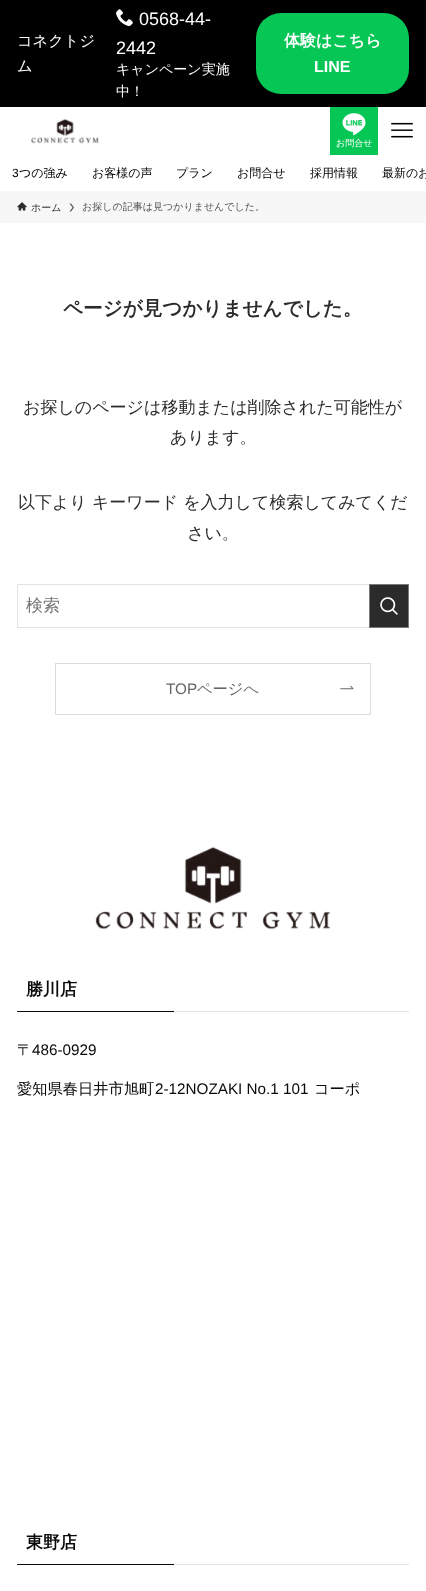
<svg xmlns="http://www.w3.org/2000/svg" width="426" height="1591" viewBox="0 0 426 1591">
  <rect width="100%" height="100%" fill="rgb(255,255,255)"/>
  <rect x="0" y="0" width="426" height="107" fill="rgb(0,0,0)"/>
  <g font-family="WenQuanYi Zen Hei" font-size="15.25" font-weight="500" fill="rgb(255,255,255)">
    <text>
      <tspan x="17" y="46">コネクトジ</tspan>
      <tspan x="17" y="71">ム</tspan>
    </text>
  </g>
  <image x="116" y="9" width="17" height="18" href="pic1.png"/>
  <g font-family="Liberation Sans" font-size="18" fill="rgb(255,255,255)">
    <text x="139" y="25">0568-44-</text>
    <text x="116" y="54">2442</text>
  </g>
  <g font-family="WenQuanYi Zen Hei" font-size="14" font-weight="500" fill="rgb(255,255,255)">
    <text>
      <tspan x="116" y="74">キャンペーン実施</tspan>
      <tspan x="116" y="96">中！</tspan>
    </text>
  </g>
  <rect x="256" y="13" width="153" height="81" rx="25" fill="rgb(6,199,85)"/>
  <text x="284" y="46" font-family="WenQuanYi Zen Hei" font-size="16" font-weight="bold" fill="rgb(255,255,255)">体験はこちら</text>
  <text x="314" y="72" font-family="Liberation Sans" font-size="16" font-weight="bold" fill="rgb(255,255,255)">LINE</text>
  <image x="31" y="119" width="68" height="25" href="pic2.png"/>
  <image x="391" y="122" width="22" height="16" href="pic3.png"/>
  <rect x="330" y="107" width="48" height="48" fill="rgb(6,199,85)"/>
  <image x="342" y="113" width="24" height="23" href="pic4.png"/>
  <text x="336" y="146" font-family="WenQuanYi Zen Hei" font-size="9" font-weight="500" fill="rgb(255,255,255)">お問合せ</text>
  <text x="12" y="177" font-family="Liberation Sans" font-size="12" fill="rgb(0,0,0)">3</text>
  <g font-family="WenQuanYi Zen Hei" font-size="12" font-weight="500" fill="rgb(0,0,0)">
    <text x="19" y="177">つの強み</text>
    <text x="92" y="177">お客様の声</text>
    <text x="176" y="177">プラン</text>
    <text x="237" y="177">お問合せ</text>
    <text x="310" y="177">採用情報</text>
    <text x="382" y="177">最新のお</text>
  </g>
  <rect x="0" y="191" width="426" height="32" fill="rgb(247,247,247)"/>
  <image x="17" y="202" width="10" height="9" href="pic5.png"/>
  <text x="31" y="211" font-family="WenQuanYi Zen Hei" font-size="10" font-weight="500" fill="rgb(43,43,43)">ホーム</text>
  <path d="M71 203.5H69.5L72.5 207.5L69.5 211.5H71L74 207.5Z" fill="rgb(84,84,84)"/>
  <text x="82" y="210" font-family="WenQuanYi Zen Hei" font-size="10" font-weight="500" fill="rgb(84,84,84)">お探しの記事は見つかりませんでした。</text>
  <text x="63" y="315" font-family="WenQuanYi Zen Hei" font-size="19.6" font-weight="bold" fill="rgb(43,43,43)">ページが見つかりませんでした。</text>
  <g font-family="WenQuanYi Zen Hei" font-size="17" font-weight="500" fill="rgb(43,43,43)">
    <text x="23" y="413">お探しのページは移動または削除された可能性が</text>
    <text x="170" y="443">あります。</text>
    <text x="18" y="508">以下より キーワード を入力して検索してみてくだ</text>
    <text x="187" y="539">さい。</text>
  </g>
  <rect x="17.5" y="584.5" width="391" height="43" fill="none" stroke="rgb(227,227,227)"/>
  <text x="26" y="611" font-family="WenQuanYi Zen Hei" font-size="17" font-weight="500" fill="rgb(117,117,117)">検索</text>
  <rect x="369.5" y="584.5" width="39" height="43" fill="rgb(43,43,43)" stroke="rgb(121,121,121)"/>
  <image x="380" y="597" width="18" height="18" href="pic6.png"/>
  <rect x="55.5" y="663.5" width="315" height="51" fill="none" stroke="rgb(220,220,220)"/>
  <text x="166" y="694" font-family="Liberation Sans" font-size="15.25" fill="rgb(102,102,102)">TOP</text>
  <text x="197" y="694" font-family="WenQuanYi Zen Hei" font-size="15.25" font-weight="500" fill="rgb(102,102,102)">ページへ</text>
  <image x="340" y="685" width="14" height="5" href="pic7.png"/>
  <image x="95" y="847" width="236" height="83" href="pic8.png"/>
  <text x="26" y="995" font-family="WenQuanYi Zen Hei" font-size="17" font-weight="bold" fill="rgb(10,10,10)">勝川店</text>
  <rect x="17" y="1011" width="157" height="1" fill="rgb(10,10,10)"/>
  <rect x="174" y="1011" width="235" height="1" fill="rgb(227,227,227)"/>
  <text x="17" y="1055" font-family="WenQuanYi Zen Hei" font-size="15.25" font-weight="500" fill="rgb(10,10,10)">〒</text>
  <text x="32" y="1055" font-family="Liberation Sans" font-size="15.25" fill="rgb(10,10,10)">486-0929</text>
  <text x="17" y="1094" font-family="WenQuanYi Zen Hei" font-size="15.25" font-weight="500" fill="rgb(10,10,10)">愛知県春日井市旭町</text>
  <text x="155" y="1094" font-family="Liberation Sans" font-size="15.25" fill="rgb(10,10,10)">2-12NOZAKI No.1 101</text>
  <text x="314" y="1094" font-family="WenQuanYi Zen Hei" font-size="15.25" font-weight="500" fill="rgb(10,10,10)">コーポ</text>
  <text x="26" y="1548" font-family="WenQuanYi Zen Hei" font-size="17" font-weight="bold" fill="rgb(10,10,10)">東野店</text>
  <rect x="17" y="1564" width="157" height="1" fill="rgb(10,10,10)"/>
  <rect x="174" y="1564" width="235" height="1" fill="rgb(227,227,227)"/>
</svg>
